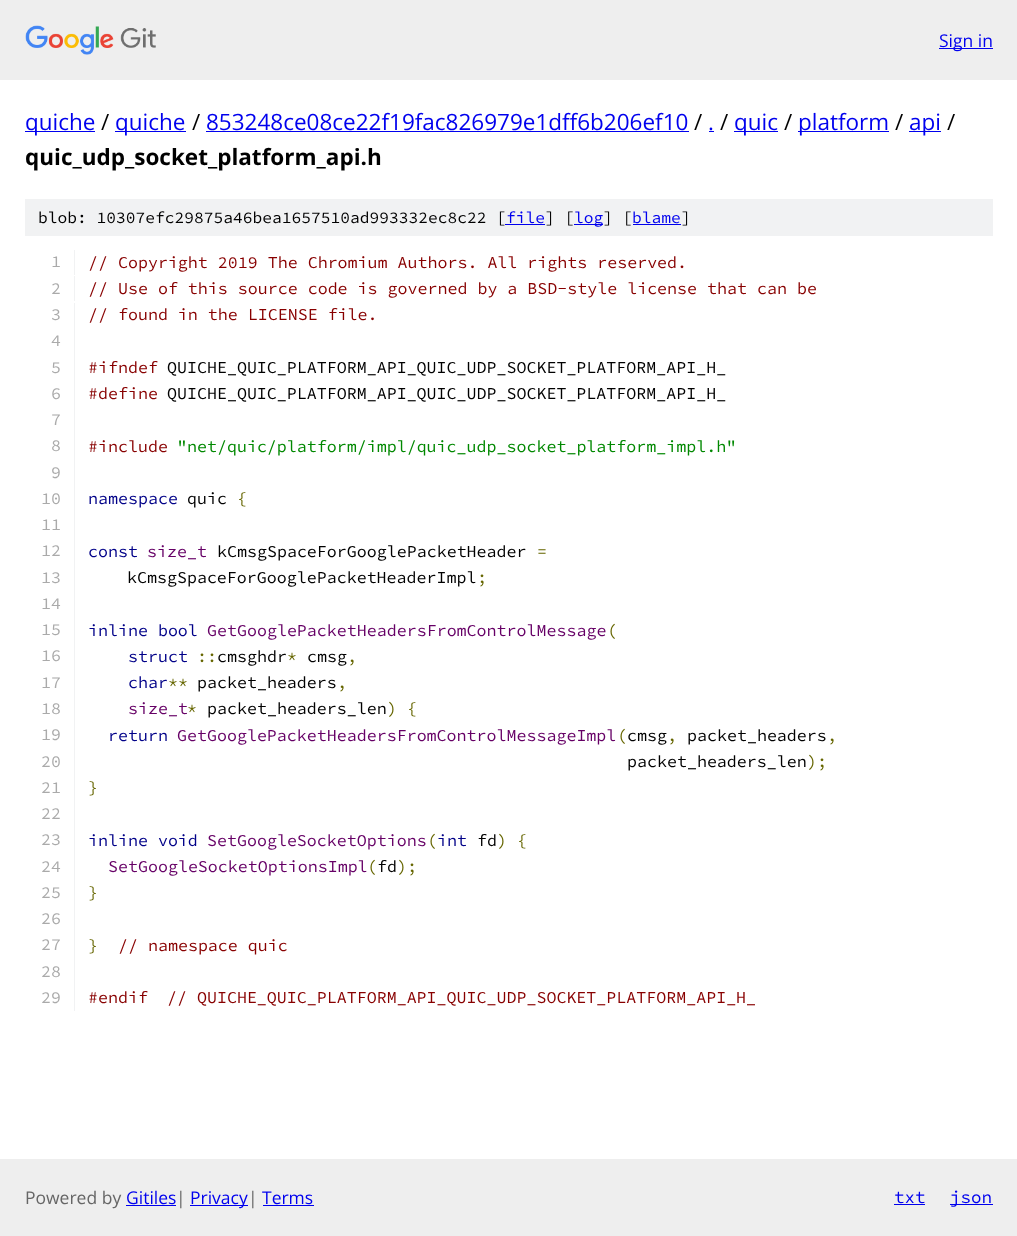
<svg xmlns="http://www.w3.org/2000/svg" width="1017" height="1236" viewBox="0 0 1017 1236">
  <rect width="100%" height="100%" fill="rgb(255,255,255)"/>
  <rect x="0" y="0" width="1017" height="80" fill="rgb(238,238,238)"/>
  <image x="25" y="25" width="131" height="30" href="pic1.png"/>
  <rect x="939" y="48" width="54" height="1" fill="rgb(0,0,238)"/>
  <text x="939" y="47" font-family="Open Sans" font-size="17.5" fill="rgb(0,0,238)">Sign in</text>
  <rect x="25" y="131" width="70" height="1" fill="rgb(0,0,238)"/>
  <text x="25" y="130" font-family="Open Sans" font-size="22.5" fill="rgb(0,0,238)">quiche</text>
  <text x="101" y="130" font-family="Open Sans" font-size="22.5" fill="rgb(0,0,0)">/</text>
  <rect x="115" y="131" width="71" height="1" fill="rgb(0,0,238)"/>
  <text x="115" y="130" font-family="Open Sans" font-size="22.5" fill="rgb(0,0,238)">quiche</text>
  <text x="192" y="130" font-family="Open Sans" font-size="22.5" fill="rgb(0,0,0)">/</text>
  <text x="206" y="130" font-family="Open Sans" font-size="22.5" fill="rgb(0,0,238)">853248ce08ce22f19fac826979e1dff6b206ef10</text>
  <rect x="206" y="131" width="483" height="1" fill="rgb(0,0,238)"/>
  <text x="694" y="130" font-family="Open Sans" font-size="22.5" fill="rgb(0,0,0)">/</text>
  <text x="708" y="130" font-family="Open Sans" font-size="22.5" fill="rgb(0,0,238)">.</text>
  <rect x="709" y="131" width="5" height="1" fill="rgb(0,0,238)"/>
  <text x="720" y="130" font-family="Open Sans" font-size="22.5" fill="rgb(0,0,0)">/</text>
  <rect x="734" y="131" width="44" height="1" fill="rgb(0,0,238)"/>
  <text x="734" y="130" font-family="Open Sans" font-size="22.5" fill="rgb(0,0,238)">quic</text>
  <text x="784" y="130" font-family="Open Sans" font-size="22.5" fill="rgb(0,0,0)">/</text>
  <rect x="798" y="131" width="91" height="1" fill="rgb(0,0,238)"/>
  <text x="798" y="130" font-family="Open Sans" font-size="22.5" fill="rgb(0,0,238)">platform</text>
  <text x="895" y="130" font-family="Open Sans" font-size="22.5" fill="rgb(0,0,0)">/</text>
  <rect x="909" y="131" width="32" height="1" fill="rgb(0,0,238)"/>
  <text x="909" y="130" font-family="Open Sans" font-size="22.5" fill="rgb(0,0,238)">api</text>
  <text x="947" y="130" font-family="Open Sans" font-size="22.5" fill="rgb(0,0,0)">/</text>
  <text x="25" y="165" font-family="Open Sans" font-size="22.5" font-weight="bold" fill="rgb(0,0,0)">quic_udp_socket_platform_api.h</text>
  <rect x="25" y="199" width="968" height="37" fill="rgb(241,242,243)"/>
  <text x="38" y="223" font-family="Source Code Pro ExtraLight" font-size="16.25" font-weight="200" fill="rgb(0,0,0)">blob: 10307efc29875a46bea1657510ad993332ec8c22 [</text>
  <text x="506" y="223" font-family="Source Code Pro ExtraLight" font-size="16.25" font-weight="200" fill="rgb(0,0,238)">file</text>
  <rect x="505" y="224" width="40" height="1" fill="rgb(0,0,238)"/>
  <text x="545" y="223" font-family="Source Code Pro ExtraLight" font-size="16.25" font-weight="200" fill="rgb(0,0,0)">] [</text>
  <rect x="574" y="224" width="29" height="1" fill="rgb(0,0,238)"/>
  <text x="574" y="223" font-family="Source Code Pro ExtraLight" font-size="16.25" font-weight="200" fill="rgb(0,0,238)">log</text>
  <text x="603" y="223" font-family="Source Code Pro ExtraLight" font-size="16.25" font-weight="200" fill="rgb(0,0,0)">] [</text>
  <text x="632" y="223" font-family="Source Code Pro ExtraLight" font-size="16.25" font-weight="200" fill="rgb(0,0,238)">blame</text>
  <rect x="633" y="224" width="48" height="1" fill="rgb(0,0,238)"/>
  <text x="681" y="223" font-family="Source Code Pro ExtraLight" font-size="16.25" font-weight="200" fill="rgb(0,0,0)">]</text>
  <rect x="74" y="250" width="1" height="25" fill="rgb(241,242,243)"/>
  <text x="51" y="267" font-family="Source Code Pro ExtraLight" font-size="16.65" font-weight="200" fill="rgb(170,170,170)">1</text>
  <text x="88" y="268" font-family="Source Code Pro ExtraLight" font-size="16.65" font-weight="200" fill="rgb(136,0,0)">// Copyright 2019 The Chromium Authors. All rights reserved.</text>
  <rect x="74" y="276" width="1" height="25" fill="rgb(241,242,243)"/>
  <text x="51" y="294" font-family="Source Code Pro ExtraLight" font-size="16.65" font-weight="200" fill="rgb(170,170,170)">2</text>
  <text x="88" y="294" font-family="Source Code Pro ExtraLight" font-size="16.65" font-weight="200" fill="rgb(136,0,0)">// Use of this source code is governed by a BSD-style license that can be</text>
  <rect x="74" y="303" width="1" height="708" fill="rgb(241,242,243)"/>
  <text x="51" y="320" font-family="Source Code Pro ExtraLight" font-size="16.65" font-weight="200" fill="rgb(170,170,170)">3</text>
  <text x="88" y="320" font-family="Source Code Pro ExtraLight" font-size="16.65" font-weight="200" fill="rgb(136,0,0)">// found in the LICENSE file.</text>
  <g font-family="Source Code Pro ExtraLight" font-size="16.65" font-weight="200" fill="rgb(170,170,170)">
    <text>
      <tspan x="51" y="346">4</tspan>
      <tspan x="51" y="373">5</tspan>
    </text>
  </g>
  <text x="88" y="373" font-family="Source Code Pro ExtraLight" font-size="16.65" font-weight="200" fill="rgb(136,0,0)">#ifndef</text>
  <text x="167" y="373" font-family="Source Code Pro ExtraLight" font-size="16.65" font-weight="200" fill="rgb(0,0,0)">QUICHE_QUIC_PLATFORM_API_QUIC_UDP_SOCKET_PLATFORM_API_H_</text>
  <text x="51" y="399" font-family="Source Code Pro ExtraLight" font-size="16.65" font-weight="200" fill="rgb(170,170,170)">6</text>
  <text x="88" y="399" font-family="Source Code Pro ExtraLight" font-size="16.65" font-weight="200" fill="rgb(136,0,0)">#define</text>
  <text x="167" y="399" font-family="Source Code Pro ExtraLight" font-size="16.65" font-weight="200" fill="rgb(0,0,0)">QUICHE_QUIC_PLATFORM_API_QUIC_UDP_SOCKET_PLATFORM_API_H_</text>
  <g font-family="Source Code Pro ExtraLight" font-size="16.65" font-weight="200" fill="rgb(170,170,170)">
    <text>
      <tspan x="51" y="425">7</tspan>
      <tspan x="51" y="451">8</tspan>
    </text>
  </g>
  <text x="88" y="452" font-family="Source Code Pro ExtraLight" font-size="16.65" font-weight="200" fill="rgb(136,0,0)">#include</text>
  <text x="177" y="452" font-family="Source Code Pro ExtraLight" font-size="16.65" font-weight="200" fill="rgb(0,136,0)">"net/quic/platform/impl/quic_udp_socket_platform_impl.h"</text>
  <g font-family="Source Code Pro ExtraLight" font-size="16.65" font-weight="200" fill="rgb(170,170,170)">
    <text x="51" y="478">9</text>
    <text x="41" y="504">10</text>
  </g>
  <text x="88" y="504" font-family="Source Code Pro ExtraLight" font-size="16.65" font-weight="200" fill="rgb(0,0,136)">namespace</text>
  <text x="187" y="504" font-family="Source Code Pro ExtraLight" font-size="16.65" font-weight="200" fill="rgb(0,0,0)">quic</text>
  <text x="237" y="504" font-family="Source Code Pro ExtraLight" font-size="16.65" font-weight="200" fill="rgb(102,102,0)">{</text>
  <g font-family="Source Code Pro ExtraLight" font-size="16.65" font-weight="200" fill="rgb(170,170,170)">
    <text>
      <tspan x="41" y="530">11</tspan>
      <tspan x="41" y="556">12</tspan>
    </text>
  </g>
  <text x="88" y="557" font-family="Source Code Pro ExtraLight" font-size="16.65" font-weight="200" fill="rgb(0,0,136)">const</text>
  <text x="147" y="557" font-family="Source Code Pro ExtraLight" font-size="16.65" font-weight="200" fill="rgb(102,0,102)">size_t</text>
  <text x="217" y="557" font-family="Source Code Pro ExtraLight" font-size="16.65" font-weight="200" fill="rgb(0,0,0)">kCmsgSpaceForGooglePacketHeader</text>
  <text x="537" y="557" font-family="Source Code Pro ExtraLight" font-size="16.65" font-weight="200" fill="rgb(102,102,0)">=</text>
  <text x="41" y="583" font-family="Source Code Pro ExtraLight" font-size="16.65" font-weight="200" fill="rgb(170,170,170)">13</text>
  <text x="127" y="583" font-family="Source Code Pro ExtraLight" font-size="16.65" font-weight="200" fill="rgb(0,0,0)">kCmsgSpaceForGooglePacketHeaderImpl</text>
  <text x="477" y="583" font-family="Source Code Pro ExtraLight" font-size="16.65" font-weight="200" fill="rgb(102,102,0)">;</text>
  <g font-family="Source Code Pro ExtraLight" font-size="16.65" font-weight="200" fill="rgb(170,170,170)">
    <text>
      <tspan x="41" y="609">14</tspan>
      <tspan x="41" y="635">15</tspan>
    </text>
  </g>
  <text x="88" y="636" font-family="Source Code Pro ExtraLight" font-size="16.65" font-weight="200" fill="rgb(0,0,136)">inline bool</text>
  <text x="207" y="636" font-family="Source Code Pro ExtraLight" font-size="16.65" font-weight="200" fill="rgb(102,0,102)">GetGooglePacketHeadersFromControlMessage</text>
  <text x="607" y="636" font-family="Source Code Pro ExtraLight" font-size="16.65" font-weight="200" fill="rgb(102,102,0)">(</text>
  <text x="41" y="661" font-family="Source Code Pro ExtraLight" font-size="16.65" font-weight="200" fill="rgb(170,170,170)">16</text>
  <text x="128" y="662" font-family="Source Code Pro ExtraLight" font-size="16.65" font-weight="200" fill="rgb(0,0,136)">struct</text>
  <text x="197" y="662" font-family="Source Code Pro ExtraLight" font-size="16.65" font-weight="200" fill="rgb(102,102,0)">::</text>
  <text x="217" y="662" font-family="Source Code Pro ExtraLight" font-size="16.65" font-weight="200" fill="rgb(0,0,0)">cmsghdr</text>
  <text x="287" y="662" font-family="Source Code Pro ExtraLight" font-size="16.65" font-weight="200" fill="rgb(102,102,0)">*</text>
  <text x="307" y="662" font-family="Source Code Pro ExtraLight" font-size="16.65" font-weight="200" fill="rgb(0,0,0)">cmsg</text>
  <text x="347" y="662" font-family="Source Code Pro ExtraLight" font-size="16.65" font-weight="200" fill="rgb(102,102,0)">,</text>
  <text x="41" y="688" font-family="Source Code Pro ExtraLight" font-size="16.65" font-weight="200" fill="rgb(170,170,170)">17</text>
  <text x="128" y="688" font-family="Source Code Pro ExtraLight" font-size="16.65" font-weight="200" fill="rgb(0,0,136)">char</text>
  <text x="168" y="688" font-family="Source Code Pro ExtraLight" font-size="16.65" font-weight="200" fill="rgb(102,102,0)">**</text>
  <text x="197" y="688" font-family="Source Code Pro ExtraLight" font-size="16.65" font-weight="200" fill="rgb(0,0,0)">packet_headers</text>
  <text x="337" y="688" font-family="Source Code Pro ExtraLight" font-size="16.65" font-weight="200" fill="rgb(102,102,0)">,</text>
  <text x="41" y="714" font-family="Source Code Pro ExtraLight" font-size="16.65" font-weight="200" fill="rgb(170,170,170)">18</text>
  <text x="128" y="714" font-family="Source Code Pro ExtraLight" font-size="16.65" font-weight="200" fill="rgb(102,0,102)">size_t</text>
  <text x="187" y="714" font-family="Source Code Pro ExtraLight" font-size="16.65" font-weight="200" fill="rgb(102,102,0)">*</text>
  <text x="207" y="714" font-family="Source Code Pro ExtraLight" font-size="16.65" font-weight="200" fill="rgb(0,0,0)">packet_headers_len</text>
  <text x="387" y="714" font-family="Source Code Pro ExtraLight" font-size="16.65" font-weight="200" fill="rgb(102,102,0)">) {</text>
  <text x="41" y="740" font-family="Source Code Pro ExtraLight" font-size="16.65" font-weight="200" fill="rgb(170,170,170)">19</text>
  <text x="108" y="741" font-family="Source Code Pro ExtraLight" font-size="16.65" font-weight="200" fill="rgb(0,0,136)">return</text>
  <text x="177" y="741" font-family="Source Code Pro ExtraLight" font-size="16.65" font-weight="200" fill="rgb(102,0,102)">GetGooglePacketHeadersFromControlMessageImpl</text>
  <text x="617" y="741" font-family="Source Code Pro ExtraLight" font-size="16.65" font-weight="200" fill="rgb(102,102,0)">(</text>
  <text x="627" y="741" font-family="Source Code Pro ExtraLight" font-size="16.65" font-weight="200" fill="rgb(0,0,0)">cmsg</text>
  <text x="667" y="741" font-family="Source Code Pro ExtraLight" font-size="16.65" font-weight="200" fill="rgb(102,102,0)">,</text>
  <text x="687" y="741" font-family="Source Code Pro ExtraLight" font-size="16.65" font-weight="200" fill="rgb(0,0,0)">packet_headers</text>
  <text x="827" y="741" font-family="Source Code Pro ExtraLight" font-size="16.65" font-weight="200" fill="rgb(102,102,0)">,</text>
  <text x="41" y="767" font-family="Source Code Pro ExtraLight" font-size="16.65" font-weight="200" fill="rgb(170,170,170)">20</text>
  <text x="627" y="767" font-family="Source Code Pro ExtraLight" font-size="16.65" font-weight="200" fill="rgb(0,0,0)">packet_headers_len</text>
  <text x="807" y="767" font-family="Source Code Pro ExtraLight" font-size="16.65" font-weight="200" fill="rgb(102,102,0)">);</text>
  <text x="41" y="793" font-family="Source Code Pro ExtraLight" font-size="16.65" font-weight="200" fill="rgb(170,170,170)">21</text>
  <text x="88" y="793" font-family="Source Code Pro ExtraLight" font-size="16.65" font-weight="200" fill="rgb(102,102,0)">}</text>
  <g font-family="Source Code Pro ExtraLight" font-size="16.65" font-weight="200" fill="rgb(170,170,170)">
    <text>
      <tspan x="41" y="819">22</tspan>
      <tspan x="41" y="845">23</tspan>
    </text>
  </g>
  <text x="88" y="846" font-family="Source Code Pro ExtraLight" font-size="16.65" font-weight="200" fill="rgb(0,0,136)">inline void</text>
  <text x="207" y="846" font-family="Source Code Pro ExtraLight" font-size="16.65" font-weight="200" fill="rgb(102,0,102)">SetGoogleSocketOptions</text>
  <text x="427" y="846" font-family="Source Code Pro ExtraLight" font-size="16.65" font-weight="200" fill="rgb(102,102,0)">(</text>
  <text x="437" y="846" font-family="Source Code Pro ExtraLight" font-size="16.65" font-weight="200" fill="rgb(0,0,136)">int</text>
  <text x="477" y="846" font-family="Source Code Pro ExtraLight" font-size="16.65" font-weight="200" fill="rgb(0,0,0)">fd</text>
  <text x="497" y="846" font-family="Source Code Pro ExtraLight" font-size="16.65" font-weight="200" fill="rgb(102,102,0)">) {</text>
  <text x="41" y="872" font-family="Source Code Pro ExtraLight" font-size="16.65" font-weight="200" fill="rgb(170,170,170)">24</text>
  <text x="108" y="872" font-family="Source Code Pro ExtraLight" font-size="16.65" font-weight="200" fill="rgb(102,0,102)">SetGoogleSocketOptionsImpl</text>
  <text x="367" y="872" font-family="Source Code Pro ExtraLight" font-size="16.65" font-weight="200" fill="rgb(102,102,0)">(</text>
  <text x="377" y="872" font-family="Source Code Pro ExtraLight" font-size="16.65" font-weight="200" fill="rgb(0,0,0)">fd</text>
  <text x="397" y="872" font-family="Source Code Pro ExtraLight" font-size="16.65" font-weight="200" fill="rgb(102,102,0)">);</text>
  <text x="41" y="898" font-family="Source Code Pro ExtraLight" font-size="16.65" font-weight="200" fill="rgb(170,170,170)">25</text>
  <text x="88" y="898" font-family="Source Code Pro ExtraLight" font-size="16.65" font-weight="200" fill="rgb(102,102,0)">}</text>
  <g font-family="Source Code Pro ExtraLight" font-size="16.65" font-weight="200" fill="rgb(170,170,170)">
    <text>
      <tspan x="41" y="924">26</tspan>
      <tspan x="41" y="950">27</tspan>
    </text>
  </g>
  <text x="88" y="951" font-family="Source Code Pro ExtraLight" font-size="16.65" font-weight="200" fill="rgb(102,102,0)">}</text>
  <text x="118" y="951" font-family="Source Code Pro ExtraLight" font-size="16.65" font-weight="200" fill="rgb(136,0,0)">// namespace quic</text>
  <g font-family="Source Code Pro ExtraLight" font-size="16.65" font-weight="200" fill="rgb(170,170,170)">
    <text>
      <tspan x="41" y="977">28</tspan>
      <tspan x="41" y="1003">29</tspan>
    </text>
  </g>
  <g font-family="Source Code Pro ExtraLight" font-size="16.65" font-weight="200" fill="rgb(136,0,0)">
    <text x="88" y="1003">#endif</text>
    <text x="167" y="1003">// QUICHE_QUIC_PLATFORM_API_QUIC_UDP_SOCKET_PLATFORM_API_H_</text>
  </g>
  <rect x="0" y="1159" width="1017" height="77" fill="rgb(238,238,238)"/>
  <text x="25" y="1204" font-family="Open Sans" font-size="17.5" fill="rgb(102,102,102)">Powered by</text>
  <text x="126" y="1204" font-family="Open Sans" font-size="17.5" fill="rgb(0,0,238)">Gitiles</text>
  <rect x="126" y="1205" width="50" height="1" fill="rgb(0,0,238)"/>
  <text x="176" y="1204" font-family="Open Sans" font-size="17.5" fill="rgb(102,102,102)">|</text>
  <rect x="190" y="1205" width="58" height="1" fill="rgb(0,0,238)"/>
  <text x="190" y="1204" font-family="Open Sans" font-size="17.5" fill="rgb(0,0,238)">Privacy</text>
  <text x="248" y="1204" font-family="Open Sans" font-size="17.5" fill="rgb(102,102,102)">|</text>
  <text x="262" y="1204" font-family="Open Sans" font-size="17.5" fill="rgb(0,0,238)">Terms</text>
  <rect x="263" y="1205" width="51" height="1" fill="rgb(0,0,238)"/>
  <text x="894" y="1203" font-family="Source Code Pro ExtraLight" font-size="17.5" font-weight="200" fill="rgb(0,0,238)">txt</text>
  <rect x="894" y="1204" width="31" height="1" fill="rgb(0,0,238)"/>
  <rect x="950" y="1204" width="43" height="1" fill="rgb(0,0,238)"/>
  <text x="950" y="1203" font-family="Source Code Pro ExtraLight" font-size="17.5" font-weight="200" fill="rgb(0,0,238)">json</text>
</svg>
